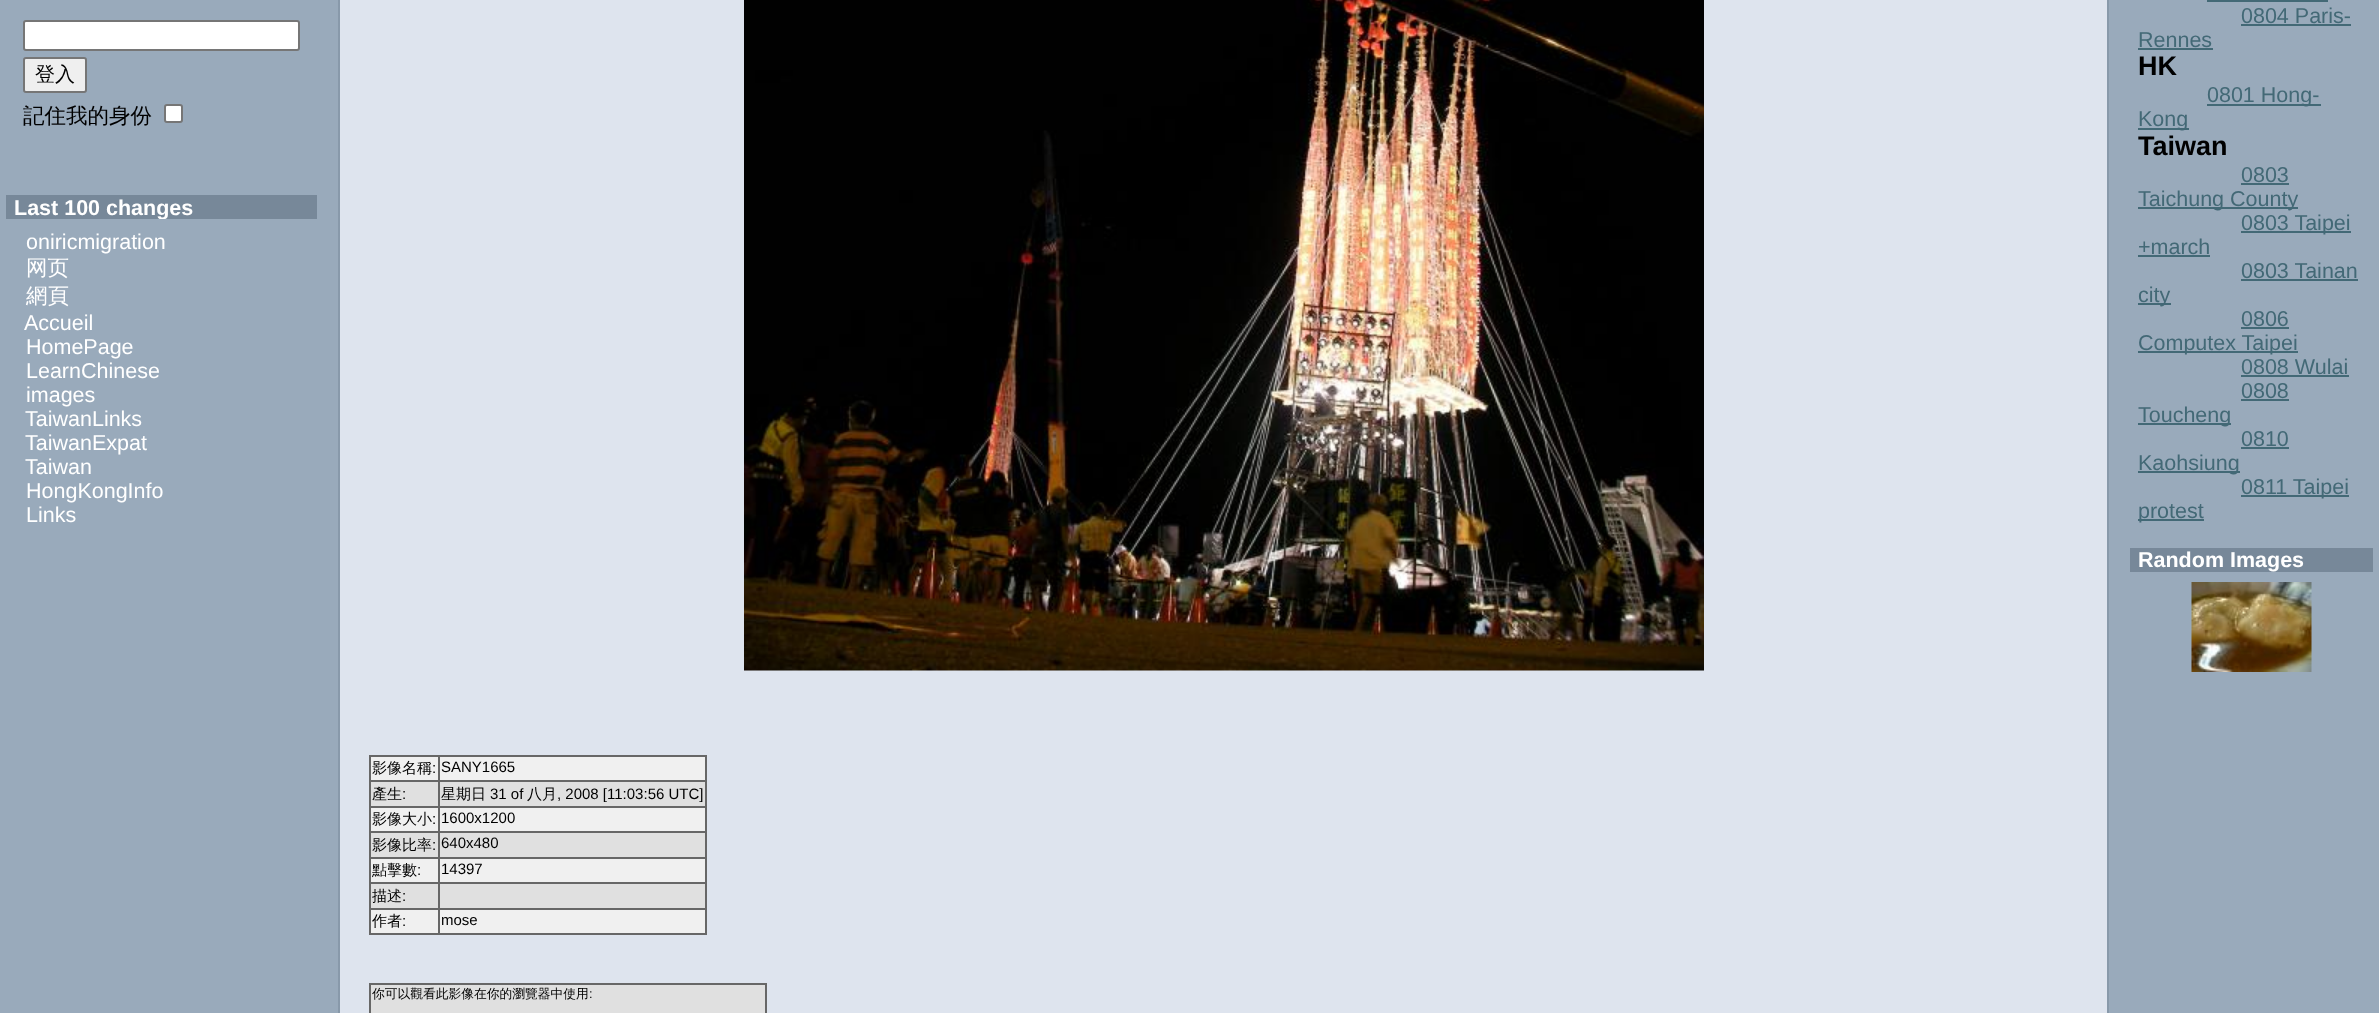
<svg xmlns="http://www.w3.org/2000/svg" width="2379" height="1013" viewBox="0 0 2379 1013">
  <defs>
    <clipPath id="clip1"><rect x="6" y="195" width="311" height="24"/></clipPath>
  </defs>
  <rect width="100%" height="100%" fill="rgb(153,170,187)"/>
  <rect x="24" y="21" width="275" height="29" rx="2" fill="rgb(255,255,255)" stroke="rgb(118,118,118)" stroke-width="2"/>
  <rect x="24" y="58" width="62" height="34" rx="2" fill="rgb(239,239,239)" stroke="rgb(118,118,118)" stroke-width="2"/>
  <text x="35" y="81" font-family="WenQuanYi Zen Hei" font-size="20" font-weight="500" fill="rgb(0,0,0)">登入</text>
  <text x="23" y="123" font-family="WenQuanYi Zen Hei" font-size="21.5" font-weight="500" fill="rgb(0,0,0)">記住我的身份</text>
  <rect x="165" y="105" width="17" height="17" rx="2" fill="rgb(255,255,255)" stroke="rgb(118,118,118)" stroke-width="2"/>
  <rect x="6" y="195" width="311" height="24" fill="rgb(119,136,153)"/>
  <g clip-path="url(#clip1)">
    <text x="14" y="215" font-family="Liberation Sans" font-size="21.5" font-weight="bold" fill="rgb(255,255,255)">Last 100 changes</text>
  </g>
  <text x="26" y="249" font-family="Liberation Sans" font-size="21.5" fill="rgb(255,255,255)">oniricmigration</text>
  <g font-family="WenQuanYi Zen Hei" font-size="21.5" font-weight="500" fill="rgb(255,255,255)">
    <text>
      <tspan x="26" y="275">网页</tspan>
      <tspan x="26" y="303">網頁</tspan>
    </text>
  </g>
  <g font-family="Liberation Sans" font-size="21.5" fill="rgb(255,255,255)">
    <text x="24" y="330">Accueil</text>
    <text>
      <tspan x="26" y="354">HomePage</tspan>
      <tspan x="26" y="378">LearnChinese</tspan>
      <tspan x="26" y="402">images</tspan>
    </text>
    <text>
      <tspan x="25" y="426">TaiwanLinks</tspan>
      <tspan x="25" y="450">TaiwanExpat</tspan>
      <tspan x="25" y="474">Taiwan</tspan>
    </text>
    <text>
      <tspan x="26" y="498">HongKongInfo</tspan>
      <tspan x="26" y="522">Links</tspan>
    </text>
  </g>
  <rect x="2207" y="0" width="121" height="2" fill="rgb(67,105,118)"/>
  <text x="2241" y="23" font-family="Liberation Sans" font-size="21.5" fill="rgb(67,105,118)">0804 Paris-</text>
  <rect x="2241" y="24" width="110" height="2" fill="rgb(67,105,118)"/>
  <text x="2138" y="47" font-family="Liberation Sans" font-size="21.5" fill="rgb(67,105,118)">Rennes</text>
  <rect x="2138" y="48" width="75" height="2" fill="rgb(67,105,118)"/>
  <text x="2138" y="75" font-family="Liberation Sans" font-size="27" font-weight="bold" fill="rgb(0,0,0)">HK</text>
  <rect x="2207" y="104" width="114" height="2" fill="rgb(67,105,118)"/>
  <text x="2207" y="102" font-family="Liberation Sans" font-size="21.5" fill="rgb(67,105,118)">0801 Hong-</text>
  <rect x="2138" y="128" width="51" height="2" fill="rgb(67,105,118)"/>
  <text x="2138" y="126" font-family="Liberation Sans" font-size="21.5" fill="rgb(67,105,118)">Kong</text>
  <text x="2138" y="155" font-family="Liberation Sans" font-size="27" font-weight="bold" fill="rgb(0,0,0)">Taiwan</text>
  <text x="2241" y="182" font-family="Liberation Sans" font-size="21.5" fill="rgb(67,105,118)">0803</text>
  <rect x="2241" y="183" width="48" height="2" fill="rgb(67,105,118)"/>
  <rect x="2138" y="207" width="160" height="2" fill="rgb(67,105,118)"/>
  <text x="2138" y="206" font-family="Liberation Sans" font-size="21.5" fill="rgb(67,105,118)">Taichung County</text>
  <rect x="2241" y="231" width="110" height="2" fill="rgb(67,105,118)"/>
  <g font-family="Liberation Sans" font-size="21.5" fill="rgb(67,105,118)">
    <text x="2241" y="230">0803 Taipei</text>
    <text x="2138" y="254">+march</text>
  </g>
  <rect x="2138" y="255" width="72" height="2" fill="rgb(67,105,118)"/>
  <text x="2241" y="278" font-family="Liberation Sans" font-size="21.5" fill="rgb(67,105,118)">0803 Tainan</text>
  <rect x="2241" y="279" width="117" height="2" fill="rgb(67,105,118)"/>
  <rect x="2138" y="303" width="33" height="2" fill="rgb(67,105,118)"/>
  <g font-family="Liberation Sans" font-size="21.5" fill="rgb(67,105,118)">
    <text x="2138" y="302">city</text>
    <text x="2241" y="326">0806</text>
  </g>
  <rect x="2241" y="327" width="48" height="2" fill="rgb(67,105,118)"/>
  <rect x="2138" y="351" width="160" height="2" fill="rgb(67,105,118)"/>
  <g font-family="Liberation Sans" font-size="21.5" fill="rgb(67,105,118)">
    <text x="2138" y="350">Computex Taipei</text>
    <text x="2241" y="374">0808 Wulai</text>
  </g>
  <rect x="2241" y="375" width="108" height="2" fill="rgb(67,105,118)"/>
  <text x="2241" y="398" font-family="Liberation Sans" font-size="21.5" fill="rgb(67,105,118)">0808</text>
  <rect x="2241" y="399" width="48" height="2" fill="rgb(67,105,118)"/>
  <rect x="2138" y="423" width="93" height="2" fill="rgb(67,105,118)"/>
  <g font-family="Liberation Sans" font-size="21.5" fill="rgb(67,105,118)">
    <text x="2138" y="422">Toucheng</text>
    <text x="2241" y="446">0810</text>
  </g>
  <rect x="2241" y="447" width="48" height="2" fill="rgb(67,105,118)"/>
  <rect x="2138" y="471" width="102" height="2" fill="rgb(67,105,118)"/>
  <text x="2138" y="470" font-family="Liberation Sans" font-size="21.5" fill="rgb(67,105,118)">Kaohsiung</text>
  <rect x="2241" y="495" width="108" height="2" fill="rgb(67,105,118)"/>
  <text x="2241" y="494" font-family="Liberation Sans" font-size="21.5" fill="rgb(67,105,118)">0811 Taipei</text>
  <rect x="2138" y="519" width="66" height="2" fill="rgb(67,105,118)"/>
  <text x="2138" y="518" font-family="Liberation Sans" font-size="21.5" fill="rgb(67,105,118)">protest</text>
  <rect x="2130" y="548" width="243" height="24" fill="rgb(119,136,153)"/>
  <text x="2138" y="567" font-family="Liberation Sans" font-size="21.5" font-weight="bold" fill="rgb(255,255,255)">Random Images</text>
  <image x="2191" y="582" width="121" height="90" href="pic1.png"/>
  <rect x="339" y="-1" width="1769" height="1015" fill="rgb(222,228,238)" stroke="rgb(136,153,170)" stroke-width="2"/>
  <image x="744" y="0" width="960" height="671" href="pic2.png"/>
  <rect x="371" y="757" width="67" height="23" fill="rgb(240,240,240)"/>
  <rect x="438" y="755" width="269" height="2" fill="rgb(103,103,103)"/>
  <rect x="438" y="780" width="269" height="2" fill="rgb(103,103,103)"/>
  <rect x="438" y="806" width="269" height="2" fill="rgb(103,103,103)"/>
  <rect x="438" y="831" width="269" height="2" fill="rgb(103,103,103)"/>
  <rect x="438" y="857" width="269" height="2" fill="rgb(103,103,103)"/>
  <rect x="438" y="882" width="269" height="2" fill="rgb(103,103,103)"/>
  <rect x="438" y="908" width="269" height="2" fill="rgb(103,103,103)"/>
  <rect x="705" y="908" width="2" height="27" fill="rgb(103,103,103)"/>
  <rect x="438" y="933" width="269" height="2" fill="rgb(103,103,103)"/>
  <rect x="438" y="908" width="2" height="27" fill="rgb(103,103,103)"/>
  <rect x="369" y="908" width="71" height="2" fill="rgb(103,103,103)"/>
  <rect x="438" y="882" width="2" height="27" fill="rgb(103,103,103)"/>
  <rect x="369" y="882" width="71" height="2" fill="rgb(103,103,103)"/>
  <rect x="438" y="857" width="2" height="27" fill="rgb(103,103,103)"/>
  <rect x="369" y="857" width="71" height="2" fill="rgb(103,103,103)"/>
  <rect x="438" y="831" width="2" height="27" fill="rgb(103,103,103)"/>
  <rect x="369" y="831" width="71" height="2" fill="rgb(103,103,103)"/>
  <rect x="438" y="806" width="2" height="27" fill="rgb(103,103,103)"/>
  <rect x="369" y="806" width="71" height="2" fill="rgb(103,103,103)"/>
  <rect x="438" y="780" width="2" height="27" fill="rgb(103,103,103)"/>
  <rect x="369" y="780" width="71" height="2" fill="rgb(103,103,103)"/>
  <rect x="438" y="755" width="2" height="27" fill="rgb(103,103,103)"/>
  <rect x="369" y="755" width="71" height="2" fill="rgb(103,103,103)"/>
  <rect x="369" y="933" width="71" height="2" fill="rgb(103,103,103)"/>
  <rect x="369" y="908" width="2" height="27" fill="rgb(103,103,103)"/>
  <rect x="369" y="882" width="2" height="27" fill="rgb(103,103,103)"/>
  <rect x="369" y="857" width="2" height="27" fill="rgb(103,103,103)"/>
  <rect x="369" y="831" width="2" height="27" fill="rgb(103,103,103)"/>
  <rect x="369" y="806" width="2" height="27" fill="rgb(103,103,103)"/>
  <rect x="369" y="780" width="2" height="27" fill="rgb(103,103,103)"/>
  <rect x="369" y="755" width="2" height="27" fill="rgb(103,103,103)"/>
  <text x="372" y="773" font-family="WenQuanYi Zen Hei" font-size="15" font-weight="500" fill="rgb(0,0,0)">影像名稱</text>
  <text x="432" y="773" font-family="Liberation Sans" font-size="15" fill="rgb(0,0,0)">:</text>
  <rect x="440" y="757" width="265" height="23" fill="rgb(240,240,240)"/>
  <rect x="705" y="882" width="2" height="27" fill="rgb(103,103,103)"/>
  <rect x="705" y="857" width="2" height="27" fill="rgb(103,103,103)"/>
  <rect x="705" y="831" width="2" height="27" fill="rgb(103,103,103)"/>
  <rect x="705" y="806" width="2" height="27" fill="rgb(103,103,103)"/>
  <rect x="705" y="780" width="2" height="27" fill="rgb(103,103,103)"/>
  <rect x="705" y="755" width="2" height="27" fill="rgb(103,103,103)"/>
  <text x="441" y="772" font-family="Liberation Sans" font-size="15" fill="rgb(0,0,0)">SANY1665</text>
  <rect x="371" y="782" width="67" height="24" fill="rgb(224,224,224)"/>
  <text x="372" y="799" font-family="WenQuanYi Zen Hei" font-size="15" font-weight="500" fill="rgb(0,0,0)">產生</text>
  <text x="402" y="799" font-family="Liberation Sans" font-size="15" fill="rgb(0,0,0)">:</text>
  <rect x="440" y="782" width="265" height="24" fill="rgb(224,224,224)"/>
  <text x="441" y="799" font-family="WenQuanYi Zen Hei" font-size="15" font-weight="500" fill="rgb(0,0,0)">星期日</text>
  <text x="490" y="799" font-family="Liberation Sans" font-size="15" fill="rgb(0,0,0)">31 of</text>
  <text x="527" y="799" font-family="WenQuanYi Zen Hei" font-size="15" font-weight="500" fill="rgb(0,0,0)">八月</text>
  <text x="557" y="799" font-family="Liberation Sans" font-size="15" fill="rgb(0,0,0)">, 2008 [11:03:56 UTC]</text>
  <rect x="371" y="808" width="67" height="23" fill="rgb(240,240,240)"/>
  <text x="372" y="824" font-family="WenQuanYi Zen Hei" font-size="15" font-weight="500" fill="rgb(0,0,0)">影像大小</text>
  <text x="432" y="824" font-family="Liberation Sans" font-size="15" fill="rgb(0,0,0)">:</text>
  <rect x="440" y="808" width="265" height="23" fill="rgb(240,240,240)"/>
  <text x="441" y="823" font-family="Liberation Sans" font-size="15" fill="rgb(0,0,0)">1600x1200</text>
  <rect x="371" y="833" width="67" height="24" fill="rgb(224,224,224)"/>
  <text x="372" y="850" font-family="WenQuanYi Zen Hei" font-size="15" font-weight="500" fill="rgb(0,0,0)">影像比率</text>
  <text x="432" y="850" font-family="Liberation Sans" font-size="15" fill="rgb(0,0,0)">:</text>
  <rect x="440" y="833" width="265" height="24" fill="rgb(224,224,224)"/>
  <text x="441" y="848" font-family="Liberation Sans" font-size="15" fill="rgb(0,0,0)">640x480</text>
  <rect x="371" y="859" width="67" height="23" fill="rgb(240,240,240)"/>
  <text x="372" y="875" font-family="WenQuanYi Zen Hei" font-size="15" font-weight="500" fill="rgb(0,0,0)">點擊數</text>
  <text x="417" y="875" font-family="Liberation Sans" font-size="15" fill="rgb(0,0,0)">:</text>
  <rect x="440" y="859" width="265" height="23" fill="rgb(240,240,240)"/>
  <text x="441" y="874" font-family="Liberation Sans" font-size="15" fill="rgb(0,0,0)">14397</text>
  <rect x="371" y="884" width="67" height="24" fill="rgb(224,224,224)"/>
  <text x="372" y="901" font-family="WenQuanYi Zen Hei" font-size="15" font-weight="500" fill="rgb(0,0,0)">描述</text>
  <text x="402" y="901" font-family="Liberation Sans" font-size="15" fill="rgb(0,0,0)">:</text>
  <rect x="440" y="884" width="265" height="24" fill="rgb(224,224,224)"/>
  <rect x="371" y="910" width="67" height="23" fill="rgb(240,240,240)"/>
  <text x="372" y="926" font-family="WenQuanYi Zen Hei" font-size="15" font-weight="500" fill="rgb(0,0,0)">作者</text>
  <text x="402" y="926" font-family="Liberation Sans" font-size="15" fill="rgb(0,0,0)">:</text>
  <rect x="440" y="910" width="265" height="23" fill="rgb(240,240,240)"/>
  <text x="441" y="925" font-family="Liberation Sans" font-size="15" fill="rgb(0,0,0)">mose</text>
  <rect x="371" y="985" width="394" height="28" fill="rgb(224,224,224)"/>
  <rect x="369" y="983" width="398" height="2" fill="rgb(103,103,103)"/>
  <rect x="765" y="983" width="2" height="30" fill="rgb(103,103,103)"/>
  <rect x="369" y="983" width="2" height="30" fill="rgb(103,103,103)"/>
  <text x="372" y="998" font-family="WenQuanYi Zen Hei" font-size="12.75" font-weight="500" fill="rgb(0,0,0)">你可以觀看此影像在你的瀏覽器中使用</text>
  <text x="589" y="998" font-family="Liberation Sans" font-size="12.75" fill="rgb(0,0,0)">:</text>
</svg>
